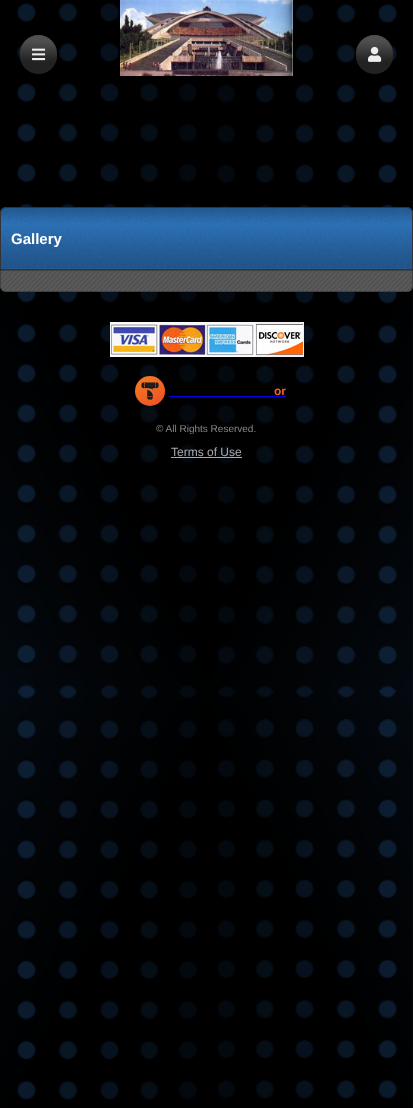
<svg xmlns="http://www.w3.org/2000/svg" width="413" height="1108" viewBox="0 0 413 1108">
  <rect width="100%" height="100%" fill="rgb(255,255,255)"/>
  <image x="0" y="0" width="413" height="1108" href="pic1.png"/>
  <rect x="20" y="35" width="37" height="39" rx="18.5" fill="rgb(34,34,34)"/>
  <image x="20" y="35" width="37" height="39" href="pic2.png"/>
  <image x="32" y="48" width="14" height="13" href="pic3.png"/>
  <image x="120" y="0" width="173" height="76" href="pic4.png"/>
  <rect x="356" y="35" width="37" height="39" rx="18.5" fill="rgb(34,34,34)"/>
  <image x="356" y="35" width="37" height="39" href="pic5.png"/>
  <image x="368" y="46" width="14" height="16" href="pic6.png"/>
  <image x="0" y="207" width="413" height="62" href="pic7.png"/>
  <path d="M6 207.5H407C410 207.5 412.5 210 412.5 213V269.5H.5V213C.5 210 3 207.5 6 207.5Z" fill="none" stroke="rgb(51,51,51)"/>
  <text x="11" y="244" font-family="Liberation Sans" font-size="15" font-weight="bold" fill="rgb(255,255,255)">Gallery</text>
  <image x="0" y="271" width="413" height="21" href="pic8.png"/>
  <path d="M.5 270.5H412.5V286C412.5 289 410 291.5 407 291.5H6C3 291.5 .5 289 .5 286Z" fill="none" stroke="rgb(65,65,65)"/>
  <image x="110" y="322" width="194" height="35" href="pic9.png"/>
  <image x="135" y="376" width="30" height="30" href="pic10.png"/>
  <text x="274" y="395" font-family="Liberation Sans" font-size="12" font-weight="bold" fill="rgb(237,97,43)">or</text>
  <rect x="169" y="396" width="117" height="1" fill="rgb(0,0,238)"/>
  <text x="156" y="432" font-family="Liberation Sans" font-size="10" fill="rgb(136,136,136)">© All Rights Reserved.</text>
  <text x="171" y="456" font-family="Liberation Sans" font-size="12" fill="rgb(170,170,170)">Terms of Use</text>
  <rect x="171" y="457" width="71" height="1" fill="rgb(170,170,170)"/>
</svg>
